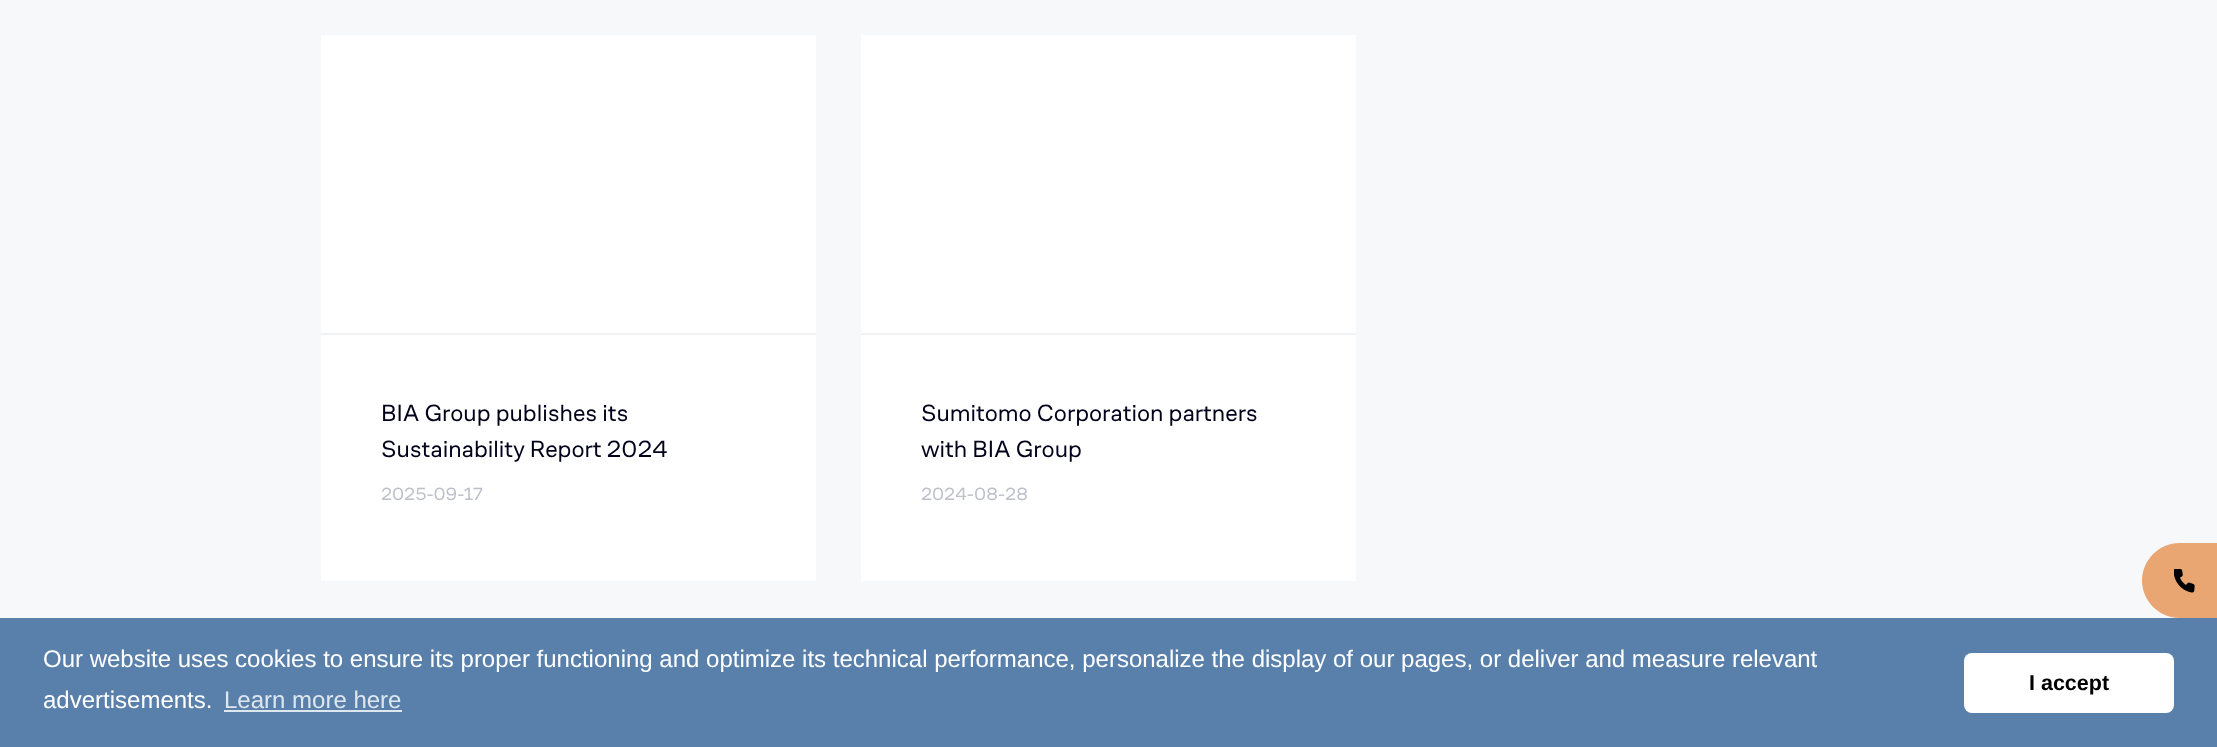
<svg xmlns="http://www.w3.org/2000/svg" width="2217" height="747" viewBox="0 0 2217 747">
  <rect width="100%" height="100%" fill="rgb(247,248,250)"/>
  <rect x="321" y="35" width="495" height="546" fill="rgb(255,255,255)"/>
  <rect x="321" y="333" width="495" height="2" fill="rgb(240,242,245)"/>
  <g font-family="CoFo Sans" font-size="24" fill="rgb(0,0,26)">
    <text>
      <tspan x="381" y="421">BIA Group publishes its</tspan>
      <tspan x="381" y="457">Sustainability Report 2024</tspan>
    </text>
  </g>
  <text x="381" y="500" font-family="CoFo Sans" font-size="18" fill="rgb(189,191,201)">2025-09-17</text>
  <rect x="861" y="35" width="495" height="546" fill="rgb(255,255,255)"/>
  <rect x="861" y="333" width="495" height="2" fill="rgb(240,242,245)"/>
  <g font-family="CoFo Sans" font-size="24" fill="rgb(0,0,26)">
    <text>
      <tspan x="921" y="421">Sumitomo Corporation partners</tspan>
      <tspan x="921" y="457">with BIA Group</tspan>
    </text>
  </g>
  <text x="921" y="500" font-family="CoFo Sans" font-size="18" fill="rgb(189,191,201)">2024-08-28</text>
  <path d="M2179.5 543H2217V618H2179.5C2159 618 2142 601 2142 580.5C2142 560 2159 543 2179.5 543Z" fill="rgb(233,166,115)"/>
  <image x="2174" y="569" width="21" height="24" href="pic1.png"/>
  <rect x="0" y="618" width="2217" height="129" fill="rgb(89,128,171)"/>
  <g font-family="Liberation Sans" font-size="24" fill="rgb(255,255,255)">
    <text>
      <tspan x="43" y="667">Our website uses cookies to ensure its proper functioning and optimize its technical performance, personalize the display of our pages, or deliver and measure relevant</tspan>
      <tspan x="43" y="708">advertisements.</tspan>
    </text>
  </g>
  <text x="224" y="708" font-family="Liberation Sans" font-size="24" fill="rgb(222,230,238)">Learn more here</text>
  <rect x="224" y="710" width="178" height="2" fill="rgb(222,230,238)"/>
  <rect x="1964" y="653" width="210" height="60" rx="8" fill="rgb(255,255,255)"/>
  <text x="2029" y="690" font-family="Liberation Sans" font-size="21.5" font-weight="bold" fill="rgb(0,0,0)">I accept</text>
</svg>
